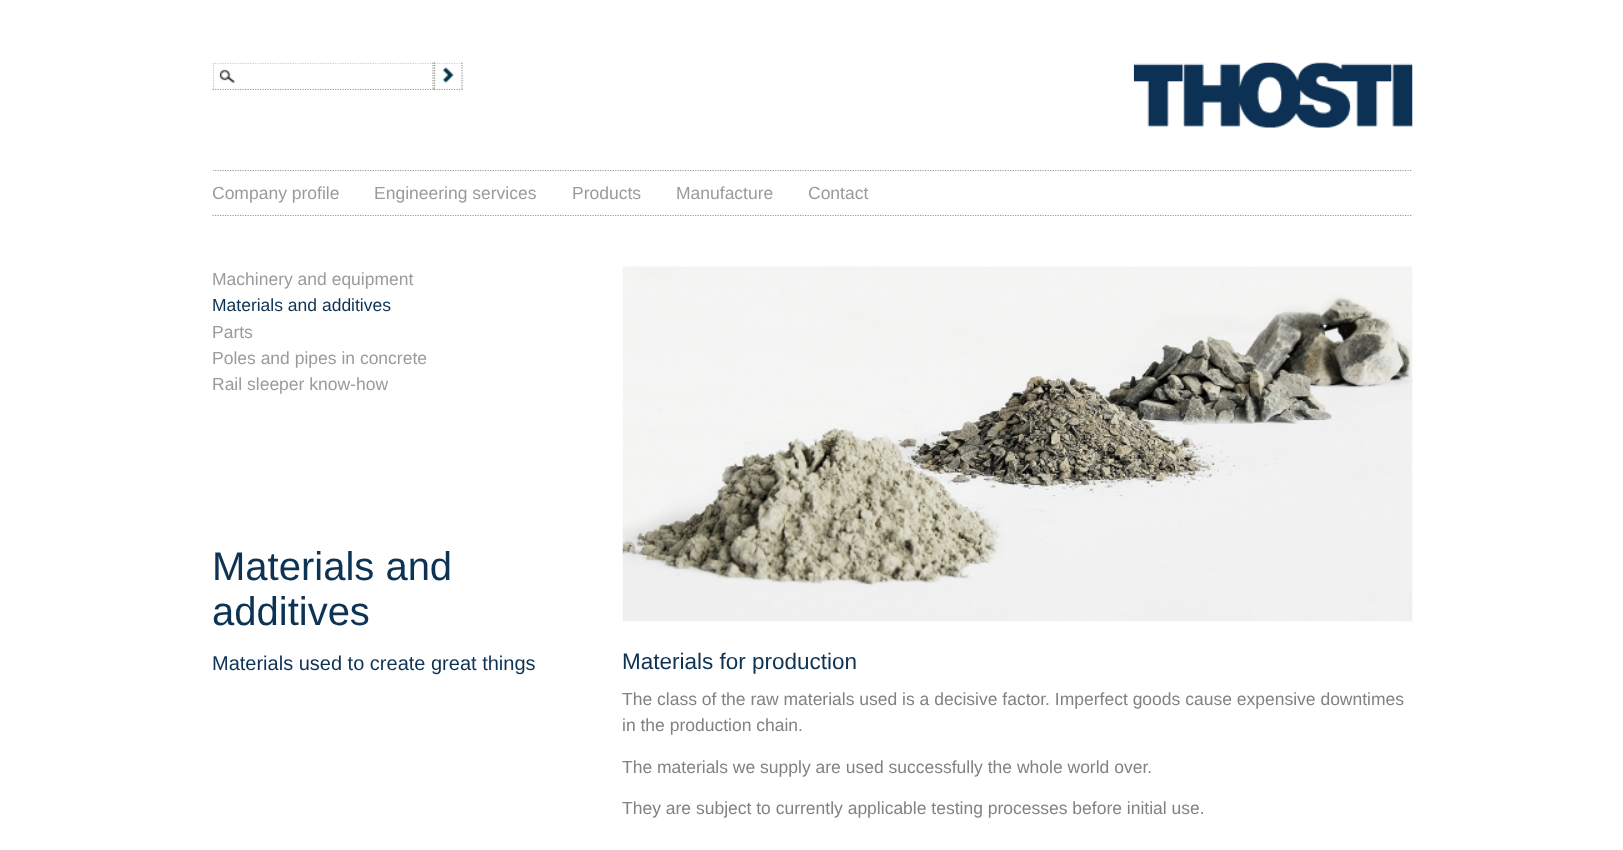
<svg xmlns="http://www.w3.org/2000/svg" width="1623" height="850" viewBox="0 0 1623 850">
  <defs>
    <clipPath id="clip1"><rect x="213" y="63" width="250" height="42"/></clipPath>
    <clipPath id="clip2"><rect x="213" y="170" width="1200" height="61"/></clipPath>
  </defs>
  <rect width="100%" height="100%" fill="rgb(255,255,255)"/>
  <image x="219" y="69" width="17" height="14" href="pic1.png"/>
  <g clip-path="url(#clip1)">
    <path d="M212.5 63H434" fill="none" stroke="rgb(155,155,155)" stroke-width="1.2" stroke-dasharray="1.25 1.25"/>
  </g>
  <path d="M433 62.5V90" fill="none" stroke="rgb(155,155,155)" stroke-width="1.2" stroke-dasharray="1.25 1.25"/>
  <path d="M212.5 89.5H434" fill="none" stroke="rgb(155,155,155)" stroke-width="1.2" stroke-dasharray="1.25 1.25"/>
  <g clip-path="url(#clip1)">
    <path d="M213 62.5V90" fill="none" stroke="rgb(155,155,155)" stroke-width="1.2" stroke-dasharray="1.25 1.25"/>
    <path d="M434 63H462.5" fill="none" stroke="rgb(155,155,155)" stroke-width="1.2" stroke-dasharray="1.25 1.25"/>
  </g>
  <path d="M462 62.5V90M434 89.5H462.5M434.5 62.5V90" fill="none" stroke="rgb(155,155,155)" stroke-width="1.2" stroke-dasharray="1.25 1.25"/>
  <image x="442" y="67" width="12" height="16" href="pic2.png"/>
  <image x="1133" y="62" width="280" height="66" href="pic3.png"/>
  <g clip-path="url(#clip2)">
    <path d="M212.5 170.5H1412.5" fill="none" stroke="rgb(155,155,155)" stroke-width="1.2" stroke-dasharray="1.25 1.25"/>
  </g>
  <path d="M212.5 215.5H1412.5" fill="none" stroke="rgb(155,155,155)" stroke-width="1.2" stroke-dasharray="1.25 1.25"/>
  <g clip-path="url(#clip2)">
    <text x="212" y="199" font-family="Liberation Sans" font-size="17.5" fill="rgb(155,155,155)">Company profile</text>
  </g>
  <g font-family="Liberation Sans" font-size="17.5" fill="rgb(155,155,155)">
    <text x="374" y="199">Engineering services</text>
    <text x="572" y="199">Products</text>
    <text x="676" y="199">Manufacture</text>
    <text x="808" y="199">Contact</text>
    <text x="212" y="285">Machinery and equipment</text>
  </g>
  <text x="212" y="311" font-family="Liberation Sans" font-size="17.5" fill="rgb(12,50,84)">Materials and additives</text>
  <g font-family="Liberation Sans" font-size="17.5" fill="rgb(155,155,155)">
    <text>
      <tspan x="212" y="338">Parts</tspan>
      <tspan x="212" y="364">Poles and pipes in concrete</tspan>
      <tspan x="212" y="390">Rail sleeper know-how</tspan>
    </text>
  </g>
  <g font-family="Liberation Sans" font-size="40" fill="rgb(12,50,84)">
    <text>
      <tspan x="212" y="580">Materials and</tspan>
      <tspan x="212" y="625">additives</tspan>
    </text>
  </g>
  <text x="212" y="670" font-family="Liberation Sans" font-size="20" fill="rgb(12,50,84)">Materials used to create great things</text>
  <image x="622" y="266" width="791" height="356" href="pic4.png"/>
  <text x="622" y="669" font-family="Liberation Sans" font-size="22.5" fill="rgb(12,50,84)">Materials for production</text>
  <g font-family="Liberation Sans" font-size="17.5" fill="rgb(130,130,130)">
    <text>
      <tspan x="622" y="705">The class of the raw materials used is a decisive factor. Imperfect goods cause expensive downtimes</tspan>
      <tspan x="622" y="731">in the production chain.</tspan>
    </text>
    <text x="622" y="773">The materials we supply are used successfully the whole world over.</text>
    <text x="622" y="814">They are subject to currently applicable testing processes before initial use.</text>
  </g>
</svg>
